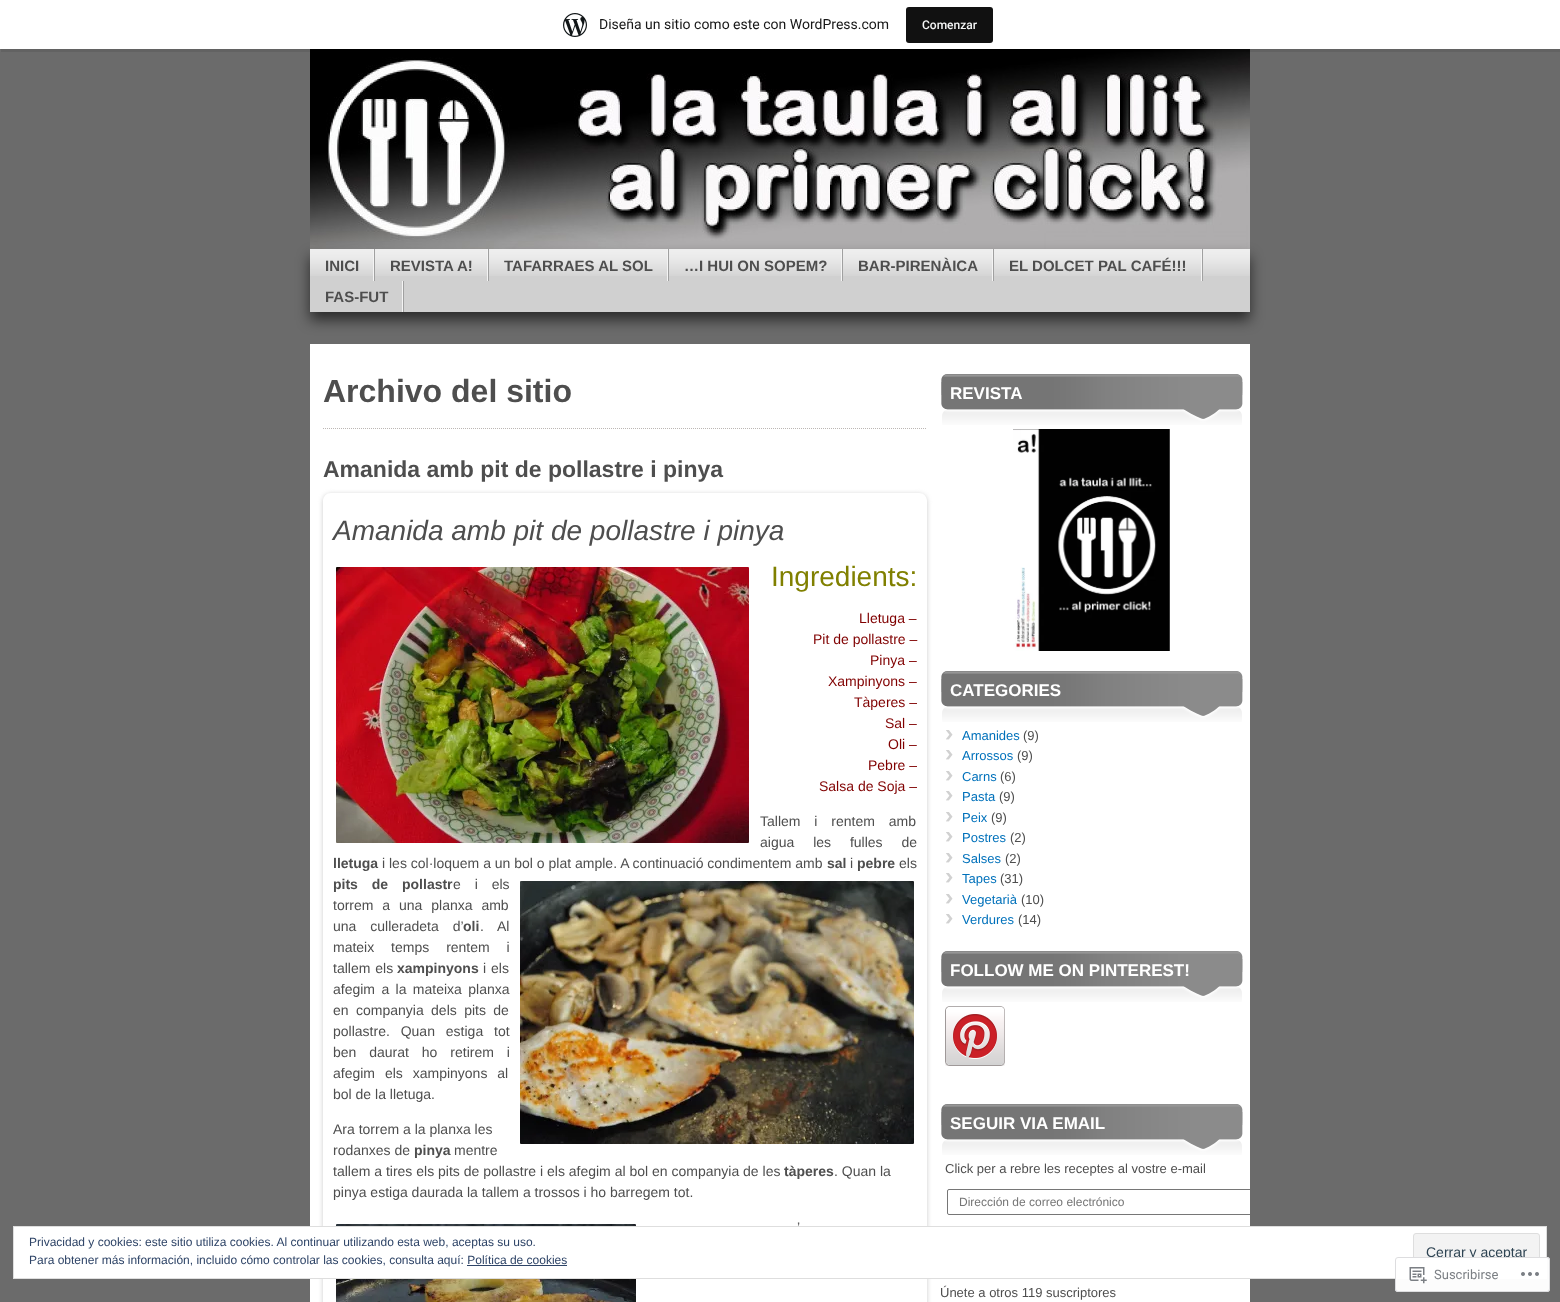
<svg xmlns="http://www.w3.org/2000/svg" width="1560" height="1302" viewBox="0 0 1560 1302">
  <defs>
    <clipPath id="clip1"><path d="M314 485H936V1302H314ZM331 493H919C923.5 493 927 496.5 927 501V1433C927 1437.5 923.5 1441 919 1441H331C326.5 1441 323 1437.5 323 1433V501C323 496.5 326.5 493 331 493Z" clip-rule="evenodd"/></clipPath>
    <clipPath id="clip2"><rect x="940" y="359" width="310" height="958"/></clipPath>
  </defs>
  <rect width="100%" height="100%" fill="rgb(107,107,107)"/>
  <image x="310" y="49" width="940" height="200" href="pic2.png"/>
  <path d="M1 49V52H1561V3H1560V49Z" fill="rgba(0,0,0,0.08)"/>
  <rect x="0" y="0" width="1560" height="49" fill="rgb(255,255,255)"/>
  <image x="563" y="13" width="24" height="24" href="pic1.png"/>
  <text x="599" y="29" font-family="Roboto" font-size="14" fill="rgb(23,23,23)">Diseña un sitio como este con WordPress.com</text>
  <rect x="906" y="7" width="87" height="36" rx="3" fill="rgb(17,17,17)"/>
  <text x="922" y="29" font-family="Roboto" font-size="12" font-weight="500" fill="rgb(246,247,247)">Comenzar</text>
  <rect x="310" y="257" width="940" height="63" fill="rgba(0,0,0,0.6)" filter="blur(7px)"/>
  <rect x="310" y="276" width="940" height="36" fill="rgb(208,208,208)"/>
  <image x="310" y="249" width="940" height="27" href="pic3.png"/>
  <image x="373" y="249" width="2" height="32" href="pic4.png"/>
  <text x="325" y="271" font-family="Liberation Sans" font-size="15" font-weight="bold" fill="rgb(78,78,78)">INICI</text>
  <image x="487" y="249" width="2" height="32" href="pic4.png"/>
  <text x="390" y="271" font-family="Liberation Sans" font-size="15" font-weight="bold" fill="rgb(78,78,78)">REVISTA A!</text>
  <image x="667" y="249" width="2" height="32" href="pic4.png"/>
  <text x="504" y="271" font-family="Liberation Sans" font-size="15" font-weight="bold" fill="rgb(78,78,78)">TAFARRAES AL SOL</text>
  <image x="841" y="249" width="2" height="32" href="pic4.png"/>
  <text x="684" y="271" font-family="Liberation Sans" font-size="15" font-weight="bold" fill="rgb(78,78,78)">…I HUI ON SOPEM?</text>
  <image x="992" y="249" width="2" height="32" href="pic4.png"/>
  <text x="858" y="271" font-family="Liberation Sans" font-size="15" font-weight="bold" fill="rgb(78,78,78)">BAR-PIRENÀICA</text>
  <image x="1201" y="249" width="2" height="32" href="pic4.png"/>
  <text x="1009" y="271" font-family="Liberation Sans" font-size="15" font-weight="bold" fill="rgb(78,78,78)">EL DOLCET PAL CAFÉ!!!</text>
  <image x="402" y="281" width="2" height="31" href="pic5.png"/>
  <text x="325" y="302" font-family="Liberation Sans" font-size="15" font-weight="bold" fill="rgb(78,78,78)">FAS-FUT</text>
  <rect x="310" y="344" width="940" height="958" fill="rgb(255,255,255)"/>
  <image x="323" y="428" width="603" height="1" href="pic6.png"/>
  <text x="323" y="402" font-family="Liberation Sans" font-size="32" font-weight="bold" fill="rgb(78,78,78)">Archivo del sitio</text>
  <text x="323" y="477" font-family="Liberation Sans" font-size="23" font-weight="bold" fill="rgb(78,78,78)">Amanida amb pit de pollastre i pinya</text>
  <g clip-path="url(#clip1)">
    <rect x="323" y="494" width="604" height="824" rx="8" fill="rgb(204,204,204)" filter="blur(2.5px)"/>
  </g>
  <text x="333" y="540" font-family="Liberation Sans" font-size="28" font-style="italic" fill="rgb(78,78,78)">Amanida amb pit de pollastre i pinya</text>
  <image x="336" y="567" width="413" height="276" href="pic7.png"/>
  <text x="771" y="586" font-family="Liberation Sans" font-size="28" fill="rgb(128,128,0)">Ingredients:</text>
  <g font-family="Liberation Sans" font-size="14" fill="rgb(128,0,0)">
    <text x="859" y="623">Lletuga –</text>
    <text x="813" y="644">Pit de pollastre –</text>
    <text x="870" y="665">Pinya –</text>
    <text x="828" y="686">Xampinyons –</text>
    <text x="854" y="707">Tàperes –</text>
    <text x="885" y="728">Sal –</text>
    <text x="888" y="749">Oli –</text>
    <text x="868" y="770">Pebre –</text>
    <text x="819" y="791">Salsa de Soja –</text>
  </g>
  <g font-family="Liberation Sans" font-size="14" fill="rgb(78,78,78)">
    <text>
      <tspan x="760" y="826" word-spacing="10">Tallem i rentem amb</tspan>
      <tspan x="760" y="847" word-spacing="15">aigua les fulles de</tspan>
    </text>
  </g>
  <text x="333" y="868" font-family="Liberation Sans" font-size="14" font-weight="bold" fill="rgb(78,78,78)">lletuga</text>
  <text x="382" y="868" font-family="Liberation Sans" font-size="14" fill="rgb(78,78,78)">i les col·loquem a un bol o plat ample. A continuació condimentem amb</text>
  <text x="827" y="868" font-family="Liberation Sans" font-size="14" font-weight="bold" fill="rgb(78,78,78)">sal</text>
  <text x="850" y="868" font-family="Liberation Sans" font-size="14" fill="rgb(78,78,78)">i</text>
  <text x="857" y="868" font-family="Liberation Sans" font-size="14" font-weight="bold" fill="rgb(78,78,78)">pebre</text>
  <text x="899" y="868" font-family="Liberation Sans" font-size="14" fill="rgb(78,78,78)">els</text>
  <text x="333" y="889" word-spacing="10" font-family="Liberation Sans" font-size="14" font-weight="bold" fill="rgb(78,78,78)">pits de pollastr</text>
  <text x="453" y="889" word-spacing="10" font-family="Liberation Sans" font-size="14" fill="rgb(78,78,78)">e i els</text>
  <image x="520" y="881" width="394" height="263" href="pic8.png"/>
  <g font-family="Liberation Sans" font-size="14" fill="rgb(78,78,78)">
    <text>
      <tspan x="333" y="910" word-spacing="5">torrem a una planxa amb</tspan>
      <tspan x="333" y="931" word-spacing="10">una culleradeta d’</tspan>
    </text>
  </g>
  <text x="463" y="931" font-family="Liberation Sans" font-size="14" font-weight="bold" fill="rgb(78,78,78)">oli</text>
  <g font-family="Liberation Sans" font-size="14" fill="rgb(78,78,78)">
    <text x="480" y="931" word-spacing="10">. Al</text>
    <text>
      <tspan x="333" y="952" word-spacing="13">mateix temps rentem i</tspan>
      <tspan x="333" y="973" word-spacing="1">tallem els</tspan>
    </text>
  </g>
  <text x="397" y="973" font-family="Liberation Sans" font-size="14" font-weight="bold" fill="rgb(78,78,78)">xampinyons</text>
  <g font-family="Liberation Sans" font-size="14" fill="rgb(78,78,78)">
    <text x="483" y="973" word-spacing="1">i els</text>
    <text>
      <tspan x="333" y="994" word-spacing="2.5">afegim a la mateixa planxa</tspan>
      <tspan x="333" y="1015" word-spacing="3.5">en companyia dels pits de</tspan>
      <tspan x="333" y="1036" word-spacing="7">pollastre. Quan estiga tot</tspan>
      <tspan x="333" y="1057" word-spacing="9">ben daurat ho retirem i</tspan>
      <tspan x="333" y="1078" word-spacing="6">afegim els xampinyons al</tspan>
      <tspan x="333" y="1099">bol de la lletuga.</tspan>
    </text>
    <text>
      <tspan x="333" y="1134">Ara torrem a la planxa les</tspan>
      <tspan x="333" y="1155">rodanxes de</tspan>
    </text>
  </g>
  <text x="414" y="1155" font-family="Liberation Sans" font-size="14" font-weight="bold" fill="rgb(78,78,78)">pinya</text>
  <g font-family="Liberation Sans" font-size="14" fill="rgb(78,78,78)">
    <text x="454" y="1155">mentre</text>
    <text x="333" y="1176">tallem a tires els pits de pollastre i els afegim al bol en companyia de les</text>
  </g>
  <text x="784" y="1176" font-family="Liberation Sans" font-size="14" font-weight="bold" fill="rgb(78,78,78)">tàperes</text>
  <g font-family="Liberation Sans" font-size="14" fill="rgb(78,78,78)">
    <text x="834" y="1176">. Quan la</text>
    <text x="333" y="1197">pinya estiga daurada la tallem a trossos i ho barregem tot.</text>
  </g>
  <image x="336" y="1224" width="300" height="78" href="pic9.png"/>
  <text x="797" y="1232" font-family="Liberation Sans" font-size="14" fill="rgb(78,78,78)">’</text>
  <image x="941" y="374" width="302" height="8" href="pic10.png"/>
  <image x="941" y="382" width="302" height="43" href="pic11.png"/>
  <text x="950" y="399" font-family="Liberation Sans" font-size="17" font-weight="bold" fill="rgb(255,255,255)">REVISTA</text>
  <image x="1013" y="429" width="157" height="222" href="pic12.png"/>
  <image x="941" y="671" width="302" height="8" href="pic10.png"/>
  <image x="941" y="679" width="302" height="43" href="pic11.png"/>
  <text x="950" y="696" font-family="Liberation Sans" font-size="17" font-weight="bold" fill="rgb(255,255,255)">CATEGORIES</text>
  <image x="946" y="730" width="7" height="10" href="pic13.png"/>
  <text x="962" y="740" font-family="Liberation Sans" font-size="13" fill="rgb(0,113,187)">Amanides</text>
  <text x="1023" y="740" font-family="Liberation Sans" font-size="13" fill="rgb(78,78,78)">(9)</text>
  <image x="946" y="750" width="7" height="10" href="pic13.png"/>
  <text x="962" y="760" font-family="Liberation Sans" font-size="13" fill="rgb(0,113,187)">Arrossos</text>
  <text x="1017" y="760" font-family="Liberation Sans" font-size="13" fill="rgb(78,78,78)">(9)</text>
  <image x="946" y="771" width="7" height="10" href="pic13.png"/>
  <text x="962" y="781" font-family="Liberation Sans" font-size="13" fill="rgb(0,113,187)">Carns</text>
  <text x="1000" y="781" font-family="Liberation Sans" font-size="13" fill="rgb(78,78,78)">(6)</text>
  <image x="946" y="791" width="7" height="10" href="pic13.png"/>
  <text x="962" y="801" font-family="Liberation Sans" font-size="13" fill="rgb(0,113,187)">Pasta</text>
  <text x="999" y="801" font-family="Liberation Sans" font-size="13" fill="rgb(78,78,78)">(9)</text>
  <image x="946" y="812" width="7" height="10" href="pic13.png"/>
  <text x="962" y="822" font-family="Liberation Sans" font-size="13" fill="rgb(0,113,187)">Peix</text>
  <text x="991" y="822" font-family="Liberation Sans" font-size="13" fill="rgb(78,78,78)">(9)</text>
  <image x="946" y="832" width="7" height="10" href="pic13.png"/>
  <text x="962" y="842" font-family="Liberation Sans" font-size="13" fill="rgb(0,113,187)">Postres</text>
  <text x="1010" y="842" font-family="Liberation Sans" font-size="13" fill="rgb(78,78,78)">(2)</text>
  <image x="946" y="853" width="7" height="10" href="pic13.png"/>
  <text x="962" y="863" font-family="Liberation Sans" font-size="13" fill="rgb(0,113,187)">Salses</text>
  <text x="1005" y="863" font-family="Liberation Sans" font-size="13" fill="rgb(78,78,78)">(2)</text>
  <image x="946" y="873" width="7" height="10" href="pic13.png"/>
  <text x="962" y="883" font-family="Liberation Sans" font-size="13" fill="rgb(0,113,187)">Tapes</text>
  <text x="1000" y="883" font-family="Liberation Sans" font-size="13" fill="rgb(78,78,78)">(31)</text>
  <image x="946" y="894" width="7" height="10" href="pic13.png"/>
  <text x="962" y="904" font-family="Liberation Sans" font-size="13" fill="rgb(0,113,187)">Vegetarià</text>
  <text x="1021" y="904" font-family="Liberation Sans" font-size="13" fill="rgb(78,78,78)">(10)</text>
  <image x="946" y="914" width="7" height="10" href="pic13.png"/>
  <text x="962" y="924" font-family="Liberation Sans" font-size="13" fill="rgb(0,113,187)">Verdures</text>
  <text x="1018" y="924" font-family="Liberation Sans" font-size="13" fill="rgb(78,78,78)">(14)</text>
  <image x="941" y="951" width="302" height="8" href="pic10.png"/>
  <image x="941" y="959" width="302" height="43" href="pic11.png"/>
  <text x="950" y="976" font-family="Liberation Sans" font-size="17" font-weight="bold" fill="rgb(255,255,255)">FOLLOW ME ON PINTEREST!</text>
  <image x="945" y="1006" width="60" height="60" href="pic14.png"/>
  <image x="941" y="1104" width="302" height="8" href="pic10.png"/>
  <image x="941" y="1112" width="302" height="43" href="pic11.png"/>
  <text x="950" y="1129" font-family="Liberation Sans" font-size="17" font-weight="bold" fill="rgb(255,255,255)">SEGUIR VIA EMAIL</text>
  <text x="945" y="1173" font-family="Liberation Sans" font-size="13" fill="rgb(78,78,78)">Click per a rebre les receptes al vostre e-mail</text>
  <g clip-path="url(#clip2)">
    <rect x="947.5" y="1189.5" width="306" height="25" rx="1.5" fill="none" stroke="rgb(118,118,118)"/>
  </g>
  <text x="959" y="1206" font-family="Liberation Sans" font-size="12" fill="rgb(117,117,117)">Dirección de correo electrónico</text>
  <text x="940" y="1297" font-family="Liberation Sans" font-size="13" fill="rgb(78,78,78)">Únete a otros 119 suscriptores</text>
  <rect x="13.5" y="1226.5" width="1533" height="52" fill="rgb(255,255,255)" stroke="rgb(222,222,222)"/>
  <g font-family="Liberation Sans" font-size="12" fill="rgb(46,68,103)">
    <text>
      <tspan x="29" y="1246">Privacidad y cookies: este sitio utiliza cookies. Al continuar utilizando esta web, aceptas su uso.</tspan>
      <tspan x="29" y="1264">Para obtener más información, incluido cómo controlar las cookies, consulta aquí: Política de cookies</tspan>
    </text>
  </g>
  <rect x="1413.5" y="1233.5" width="126" height="38" rx="2.5" fill="rgb(243,243,243)" stroke="rgb(222,222,222)"/>
  <text x="1426" y="1257" font-family="Liberation Sans" font-size="14" fill="rgb(46,68,83)">Cerrar y aceptar</text>
  <rect x="467" y="1265" width="100" height="1" fill="rgb(46,68,103)"/>
  <rect x="1395" y="1257" width="155" height="35" rx="3" fill="rgba(255,255,255,0.98)"/>
  <rect x="1395.5" y="1257.5" width="154" height="34" rx="2.5" fill="none" stroke="rgba(220,220,222,0.98)"/>
  <image x="1409" y="1267" width="18" height="17" href="pic15.png"/>
  <text x="1434" y="1279" font-family="Roboto" font-size="13" fill="rgb(123,127,132)">Suscribirse</text>
  <image x="1521" y="1272" width="18" height="4" href="pic16.png"/>
</svg>
